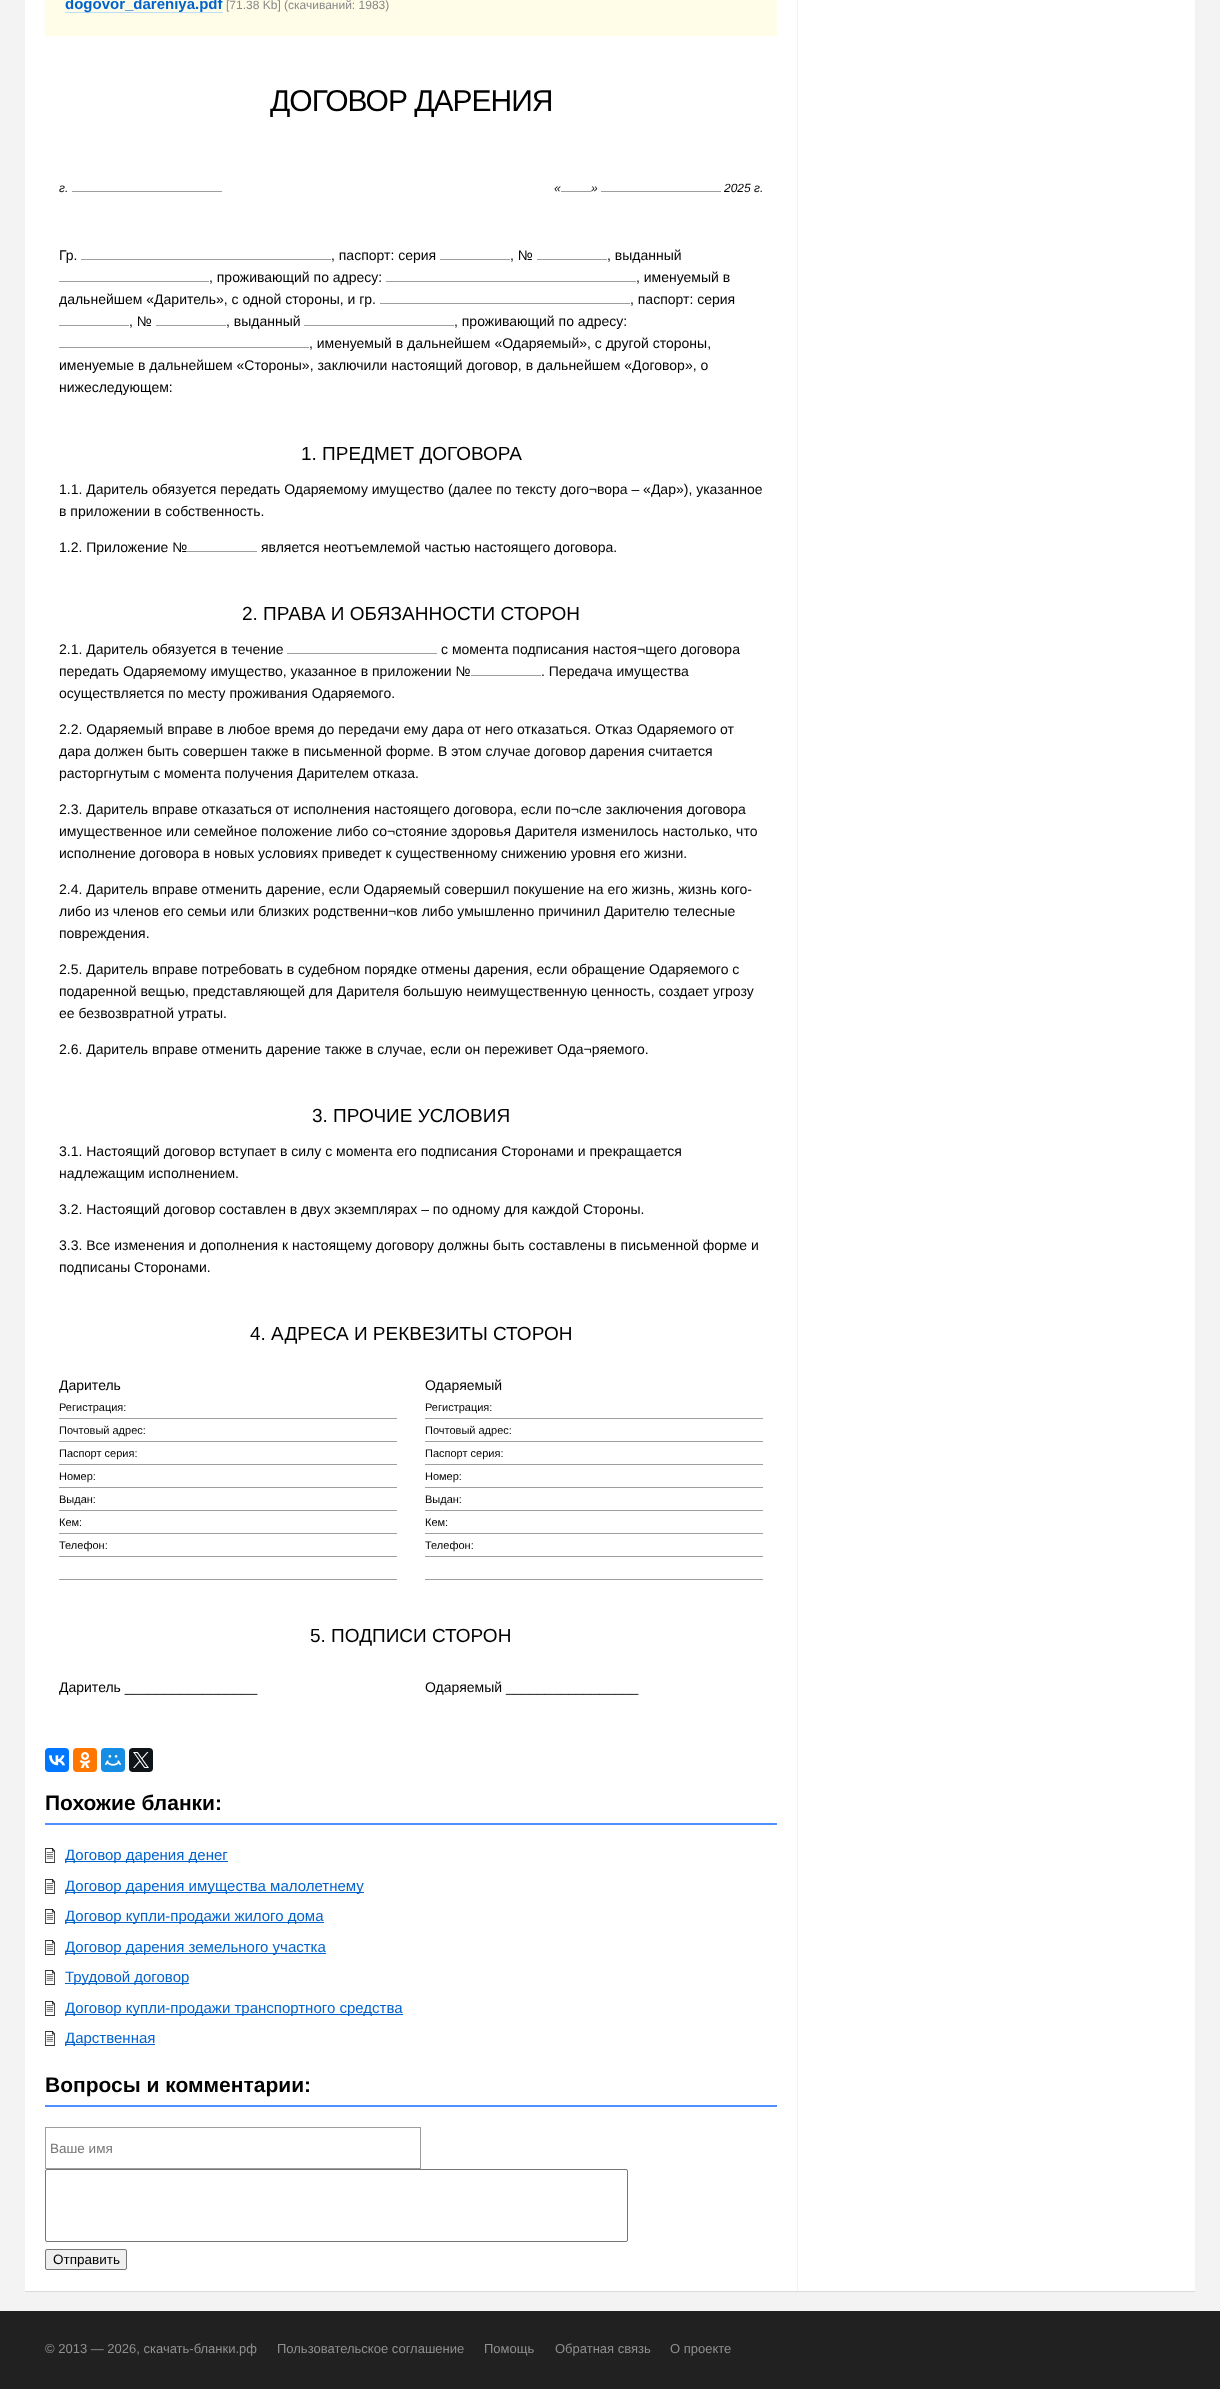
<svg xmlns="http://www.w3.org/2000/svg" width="1220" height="2389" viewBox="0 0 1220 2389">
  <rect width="100%" height="100%" fill="rgb(243,243,243)"/>
  <rect x="25" y="-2" width="1170" height="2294" fill="rgba(0,0,0,0.1)" filter="blur(0.5px)"/>
  <rect x="25" y="0" width="1170" height="2291" fill="rgb(255,255,255)"/>
  <rect x="797" y="0" width="1" height="2291" fill="rgb(243,243,243)"/>
  <rect x="45" y="0" width="732" height="36" fill="rgb(255,253,231)"/>
  <rect x="65" y="12" width="158" height="1" fill="rgb(187,222,251)"/>
  <text x="65" y="9" font-family="Liberation Sans" font-size="15" font-weight="bold" fill="rgb(3,99,205)">dogovor_dareniya.pdf</text>
  <text x="226" y="9" font-family="Liberation Sans" font-size="12" fill="rgb(136,136,136)">[71.38 Kb] (cкачиваний: 1983)</text>
  <text x="270" y="111" font-family="Liberation Sans" font-size="30" letter-spacing="-1" fill="rgb(0,0,0)">ДОГОВОР ДАРЕНИЯ</text>
  <text x="59" y="192" font-family="Liberation Sans" font-size="12" font-style="italic" fill="rgb(0,0,0)">г.</text>
  <rect x="72" y="191" width="150" height="1" fill="rgb(158,158,158)"/>
  <text x="554" y="192" font-family="Liberation Sans" font-size="12" font-style="italic" fill="rgb(0,0,0)">«</text>
  <rect x="561" y="191" width="30" height="1" fill="rgb(158,158,158)"/>
  <text x="591" y="192" font-family="Liberation Sans" font-size="12" font-style="italic" fill="rgb(0,0,0)">»</text>
  <rect x="601" y="191" width="120" height="1" fill="rgb(158,158,158)"/>
  <text x="724" y="192" font-family="Liberation Sans" font-size="12" font-style="italic" fill="rgb(0,0,0)">2025 г.</text>
  <text x="59" y="260" font-family="Liberation Sans" font-size="14" fill="rgb(0,0,0)">Гр.</text>
  <rect x="81" y="259" width="250" height="1" fill="rgb(158,158,158)"/>
  <text x="331" y="260" font-family="Liberation Sans" font-size="14" fill="rgb(0,0,0)">, паспорт: серия</text>
  <rect x="440" y="259" width="70" height="1" fill="rgb(158,158,158)"/>
  <text x="510" y="260" font-family="Liberation Sans" font-size="14" fill="rgb(0,0,0)">, №</text>
  <rect x="537" y="259" width="70" height="1" fill="rgb(158,158,158)"/>
  <text x="607" y="260" font-family="Liberation Sans" font-size="14" fill="rgb(0,0,0)">, выданный</text>
  <rect x="59" y="281" width="150" height="1" fill="rgb(158,158,158)"/>
  <text x="209" y="282" font-family="Liberation Sans" font-size="14" fill="rgb(0,0,0)">, проживающий по адресу:</text>
  <rect x="386" y="281" width="250" height="1" fill="rgb(158,158,158)"/>
  <g font-family="Liberation Sans" font-size="14" fill="rgb(0,0,0)">
    <text x="636" y="282">, именуемый в</text>
    <text x="59" y="304">дальнейшем «Даритель», с одной стороны, и гр.</text>
  </g>
  <rect x="380" y="303" width="250" height="1" fill="rgb(158,158,158)"/>
  <text x="630" y="304" font-family="Liberation Sans" font-size="14" fill="rgb(0,0,0)">, паспорт: серия</text>
  <rect x="59" y="325" width="70" height="1" fill="rgb(158,158,158)"/>
  <text x="129" y="326" font-family="Liberation Sans" font-size="14" fill="rgb(0,0,0)">, №</text>
  <rect x="156" y="325" width="70" height="1" fill="rgb(158,158,158)"/>
  <text x="226" y="326" font-family="Liberation Sans" font-size="14" fill="rgb(0,0,0)">, выданный</text>
  <rect x="304" y="325" width="150" height="1" fill="rgb(158,158,158)"/>
  <text x="454" y="326" font-family="Liberation Sans" font-size="14" fill="rgb(0,0,0)">, проживающий по адресу:</text>
  <rect x="59" y="347" width="250" height="1" fill="rgb(158,158,158)"/>
  <g font-family="Liberation Sans" font-size="14" fill="rgb(0,0,0)">
    <text x="309" y="348">, именуемый в дальнейшем «Одаряемый», с другой стороны,</text>
    <text>
      <tspan x="59" y="370">именуемые в дальнейшем «Стороны», заключили настоящий договор, в дальнейшем «Договор», о</tspan>
      <tspan x="59" y="392">нижеследующем:</tspan>
    </text>
  </g>
  <text x="301" y="460" font-family="Liberation Sans" font-size="19" fill="rgb(0,0,0)">1. ПРЕДМЕТ ДОГОВОРА</text>
  <g font-family="Liberation Sans" font-size="14" fill="rgb(0,0,0)">
    <text>
      <tspan x="59" y="494">1.1. Даритель обязуется передать Одаряемому имущество (далее по тексту дого¬вора – «Дар»), указанное</tspan>
      <tspan x="59" y="516">в приложении в собственность.</tspan>
    </text>
    <text x="59" y="552">1.2. Приложение №</text>
  </g>
  <rect x="187" y="551" width="70" height="1" fill="rgb(158,158,158)"/>
  <text x="261" y="552" font-family="Liberation Sans" font-size="14" fill="rgb(0,0,0)">является неотъемлемой частью настоящего договора.</text>
  <text x="242" y="620" font-family="Liberation Sans" font-size="19" fill="rgb(0,0,0)">2. ПРАВА И ОБЯЗАННОСТИ СТОРОН</text>
  <text x="59" y="654" font-family="Liberation Sans" font-size="14" fill="rgb(0,0,0)">2.1. Даритель обязуется в течение</text>
  <rect x="287" y="653" width="150" height="1" fill="rgb(158,158,158)"/>
  <g font-family="Liberation Sans" font-size="14" fill="rgb(0,0,0)">
    <text x="441" y="654">с момента подписания настоя¬щего договора</text>
    <text x="59" y="676">передать Одаряемому имущество, указанное в приложении №</text>
  </g>
  <rect x="471" y="675" width="70" height="1" fill="rgb(158,158,158)"/>
  <g font-family="Liberation Sans" font-size="14" fill="rgb(0,0,0)">
    <text x="541" y="676">. Передача имущества</text>
    <text x="59" y="698">осуществляется по месту проживания Одаряемого.</text>
    <text>
      <tspan x="59" y="734">2.2. Одаряемый вправе в любое время до передачи ему дара от него отказаться. Отказ Одаряемого от</tspan>
      <tspan x="59" y="756">дара должен быть совершен также в письменной форме. В этом случае договор дарения считается</tspan>
      <tspan x="59" y="778">расторгнутым с момента получения Дарителем отказа.</tspan>
    </text>
    <text>
      <tspan x="59" y="814">2.3. Даритель вправе отказаться от исполнения настоящего договора, если по¬сле заключения договора</tspan>
      <tspan x="59" y="836">имущественное или семейное положение либо со¬стояние здоровья Дарителя изменилось настолько, что</tspan>
      <tspan x="59" y="858">исполнение договора в новых условиях приведет к существенному снижению уровня его жизни.</tspan>
    </text>
    <text>
      <tspan x="59" y="894">2.4. Даритель вправе отменить дарение, если Одаряемый совершил покушение на его жизнь, жизнь кого-</tspan>
      <tspan x="59" y="916">либо из членов его семьи или близких родственни¬ков либо умышленно причинил Дарителю телесные</tspan>
      <tspan x="59" y="938">повреждения.</tspan>
    </text>
    <text>
      <tspan x="59" y="974">2.5. Даритель вправе потребовать в судебном порядке отмены дарения, если обращение Одаряемого с</tspan>
      <tspan x="59" y="996">подаренной вещью, представляющей для Дарителя большую неимущественную ценность, создает угрозу</tspan>
      <tspan x="59" y="1018">ее безвозвратной утраты.</tspan>
    </text>
    <text x="59" y="1054">2.6. Даритель вправе отменить дарение также в случае, если он переживет Ода¬ряемого.</text>
  </g>
  <text x="312" y="1122" font-family="Liberation Sans" font-size="19" fill="rgb(0,0,0)">3. ПРОЧИЕ УСЛОВИЯ</text>
  <g font-family="Liberation Sans" font-size="14" fill="rgb(0,0,0)">
    <text>
      <tspan x="59" y="1156">3.1. Настоящий договор вступает в силу с момента его подписания Сторонами и прекращается</tspan>
      <tspan x="59" y="1178">надлежащим исполнением.</tspan>
    </text>
    <text x="59" y="1214">3.2. Настоящий договор составлен в двух экземплярах – по одному для каждой Стороны.</text>
    <text>
      <tspan x="59" y="1250">3.3. Все изменения и дополнения к настоящему договору должны быть составлены в письменной форме и</tspan>
      <tspan x="59" y="1272">подписаны Сторонами.</tspan>
    </text>
  </g>
  <text x="250" y="1340" font-family="Liberation Sans" font-size="19" fill="rgb(0,0,0)">4. АДРЕСА И РЕКВЕЗИТЫ СТОРОН</text>
  <text x="59" y="1390" font-family="Liberation Sans" font-size="14" fill="rgb(0,0,0)">Даритель</text>
  <rect x="59" y="1418" width="338" height="1" fill="rgb(158,158,158)"/>
  <text x="59" y="1411" font-family="Liberation Sans" font-size="11" fill="rgb(0,0,0)">Регистрация:</text>
  <rect x="59" y="1441" width="338" height="1" fill="rgb(158,158,158)"/>
  <text x="59" y="1434" font-family="Liberation Sans" font-size="11" fill="rgb(0,0,0)">Почтовый адрес:</text>
  <rect x="59" y="1464" width="338" height="1" fill="rgb(158,158,158)"/>
  <text x="59" y="1457" font-family="Liberation Sans" font-size="11" fill="rgb(0,0,0)">Паспорт серия:</text>
  <rect x="59" y="1487" width="338" height="1" fill="rgb(158,158,158)"/>
  <text x="59" y="1480" font-family="Liberation Sans" font-size="11" fill="rgb(0,0,0)">Номер:</text>
  <rect x="59" y="1510" width="338" height="1" fill="rgb(158,158,158)"/>
  <text x="59" y="1503" font-family="Liberation Sans" font-size="11" fill="rgb(0,0,0)">Выдан:</text>
  <rect x="59" y="1533" width="338" height="1" fill="rgb(158,158,158)"/>
  <text x="59" y="1526" font-family="Liberation Sans" font-size="11" fill="rgb(0,0,0)">Кем:</text>
  <rect x="59" y="1556" width="338" height="1" fill="rgb(158,158,158)"/>
  <text x="59" y="1549" font-family="Liberation Sans" font-size="11" fill="rgb(0,0,0)">Телефон:</text>
  <rect x="59" y="1579" width="338" height="1" fill="rgb(158,158,158)"/>
  <text x="425" y="1390" font-family="Liberation Sans" font-size="14" fill="rgb(0,0,0)">Одаряемый</text>
  <rect x="425" y="1418" width="338" height="1" fill="rgb(158,158,158)"/>
  <text x="425" y="1411" font-family="Liberation Sans" font-size="11" fill="rgb(0,0,0)">Регистрация:</text>
  <rect x="425" y="1441" width="338" height="1" fill="rgb(158,158,158)"/>
  <text x="425" y="1434" font-family="Liberation Sans" font-size="11" fill="rgb(0,0,0)">Почтовый адрес:</text>
  <rect x="425" y="1464" width="338" height="1" fill="rgb(158,158,158)"/>
  <text x="425" y="1457" font-family="Liberation Sans" font-size="11" fill="rgb(0,0,0)">Паспорт серия:</text>
  <rect x="425" y="1487" width="338" height="1" fill="rgb(158,158,158)"/>
  <text x="425" y="1480" font-family="Liberation Sans" font-size="11" fill="rgb(0,0,0)">Номер:</text>
  <rect x="425" y="1510" width="338" height="1" fill="rgb(158,158,158)"/>
  <text x="425" y="1503" font-family="Liberation Sans" font-size="11" fill="rgb(0,0,0)">Выдан:</text>
  <rect x="425" y="1533" width="338" height="1" fill="rgb(158,158,158)"/>
  <text x="425" y="1526" font-family="Liberation Sans" font-size="11" fill="rgb(0,0,0)">Кем:</text>
  <rect x="425" y="1556" width="338" height="1" fill="rgb(158,158,158)"/>
  <text x="425" y="1549" font-family="Liberation Sans" font-size="11" fill="rgb(0,0,0)">Телефон:</text>
  <rect x="425" y="1579" width="338" height="1" fill="rgb(158,158,158)"/>
  <text x="310" y="1642" font-family="Liberation Sans" font-size="19" fill="rgb(0,0,0)">5. ПОДПИСИ СТОРОН</text>
  <g font-family="Liberation Sans" font-size="14" fill="rgb(0,0,0)">
    <text x="59" y="1692">Даритель _________________</text>
    <text x="425" y="1692">Одаряемый _________________</text>
  </g>
  <rect x="45" y="1748" width="24" height="24" rx="4" fill="rgb(0,119,255)"/>
  <image x="49" y="1755" width="16" height="11" href="pic1.png"/>
  <rect x="73" y="1748" width="24" height="24" rx="4" fill="rgb(255,119,0)"/>
  <image x="79" y="1752" width="12" height="16" href="pic2.png"/>
  <rect x="101" y="1748" width="24" height="24" rx="4" fill="rgb(22,141,226)"/>
  <image x="105" y="1755" width="16" height="11" href="pic3.png"/>
  <rect x="129" y="1748" width="24" height="24" rx="4" fill="rgb(15,20,25)"/>
  <image x="133" y="1752" width="16" height="16" href="pic4.png"/>
  <rect x="45" y="1823" width="732" height="2" fill="rgb(77,144,254)"/>
  <text x="45" y="1810" font-family="Liberation Sans" font-size="21" font-weight="bold" fill="rgb(0,0,0)">Похожие бланки:</text>
  <image x="45" y="1848" width="10" height="15" href="pic5.png"/>
  <rect x="65" y="1861" width="163" height="1" fill="rgb(3,99,205)"/>
  <text x="65" y="1860" font-family="Liberation Sans" font-size="15" fill="rgb(3,99,205)">Договор дарения денег</text>
  <image x="45" y="1879" width="10" height="15" href="pic5.png"/>
  <rect x="65" y="1892" width="299" height="1" fill="rgb(3,99,205)"/>
  <text x="65" y="1891" font-family="Liberation Sans" font-size="15" fill="rgb(3,99,205)">Договор дарения имущества малолетнему</text>
  <image x="45" y="1909" width="10" height="15" href="pic5.png"/>
  <rect x="65" y="1922" width="259" height="1" fill="rgb(3,99,205)"/>
  <text x="65" y="1921" font-family="Liberation Sans" font-size="15" fill="rgb(3,99,205)">Договор купли-продажи жилого дома</text>
  <image x="45" y="1940" width="10" height="15" href="pic5.png"/>
  <rect x="65" y="1953" width="261" height="1" fill="rgb(3,99,205)"/>
  <text x="65" y="1952" font-family="Liberation Sans" font-size="15" fill="rgb(3,99,205)">Договор дарения земельного участка</text>
  <image x="45" y="1970" width="10" height="15" href="pic5.png"/>
  <rect x="65" y="1983" width="124" height="1" fill="rgb(3,99,205)"/>
  <text x="65" y="1982" font-family="Liberation Sans" font-size="15" fill="rgb(3,99,205)">Трудовой договор</text>
  <image x="45" y="2001" width="10" height="15" href="pic5.png"/>
  <rect x="65" y="2014" width="338" height="1" fill="rgb(3,99,205)"/>
  <text x="65" y="2013" font-family="Liberation Sans" font-size="15" fill="rgb(3,99,205)">Договор купли-продажи транспортного средства</text>
  <image x="45" y="2031" width="10" height="15" href="pic5.png"/>
  <rect x="65" y="2044" width="90" height="1" fill="rgb(3,99,205)"/>
  <text x="65" y="2043" font-family="Liberation Sans" font-size="15" fill="rgb(3,99,205)">Дарственная</text>
  <rect x="45" y="2105" width="732" height="2" fill="rgb(77,144,254)"/>
  <text x="45" y="2092" font-family="Liberation Sans" font-size="21" font-weight="bold" fill="rgb(0,0,0)">Вопросы и комментарии:</text>
  <rect x="45.5" y="2127.5" width="375" height="41" fill="none" stroke="rgb(158,158,158)"/>
  <text x="50" y="2153" font-family="Liberation Sans" font-size="13.5" fill="rgb(117,117,117)">Ваше имя</text>
  <rect x="45.5" y="2169.5" width="582" height="72" rx="1.5" fill="none" stroke="rgb(118,118,118)"/>
  <rect x="45.5" y="2249.5" width="81" height="20" rx="1.5" fill="rgb(239,239,239)" stroke="rgb(118,118,118)"/>
  <text x="53" y="2264" font-family="Liberation Sans" font-size="13.5" fill="rgb(0,0,0)">Отправить</text>
  <rect x="0" y="2311" width="1220" height="78" fill="rgb(33,33,33)"/>
  <g font-family="Liberation Sans" font-size="13" fill="rgb(144,144,144)">
    <text x="45" y="2353">© 2013 — 2026, скачать-бланки.рф</text>
    <text x="277" y="2353">Пользовательское соглашение</text>
    <text x="484" y="2353">Помощь</text>
    <text x="555" y="2353">Обратная связь</text>
    <text x="670" y="2353">О проекте</text>
  </g>
</svg>
